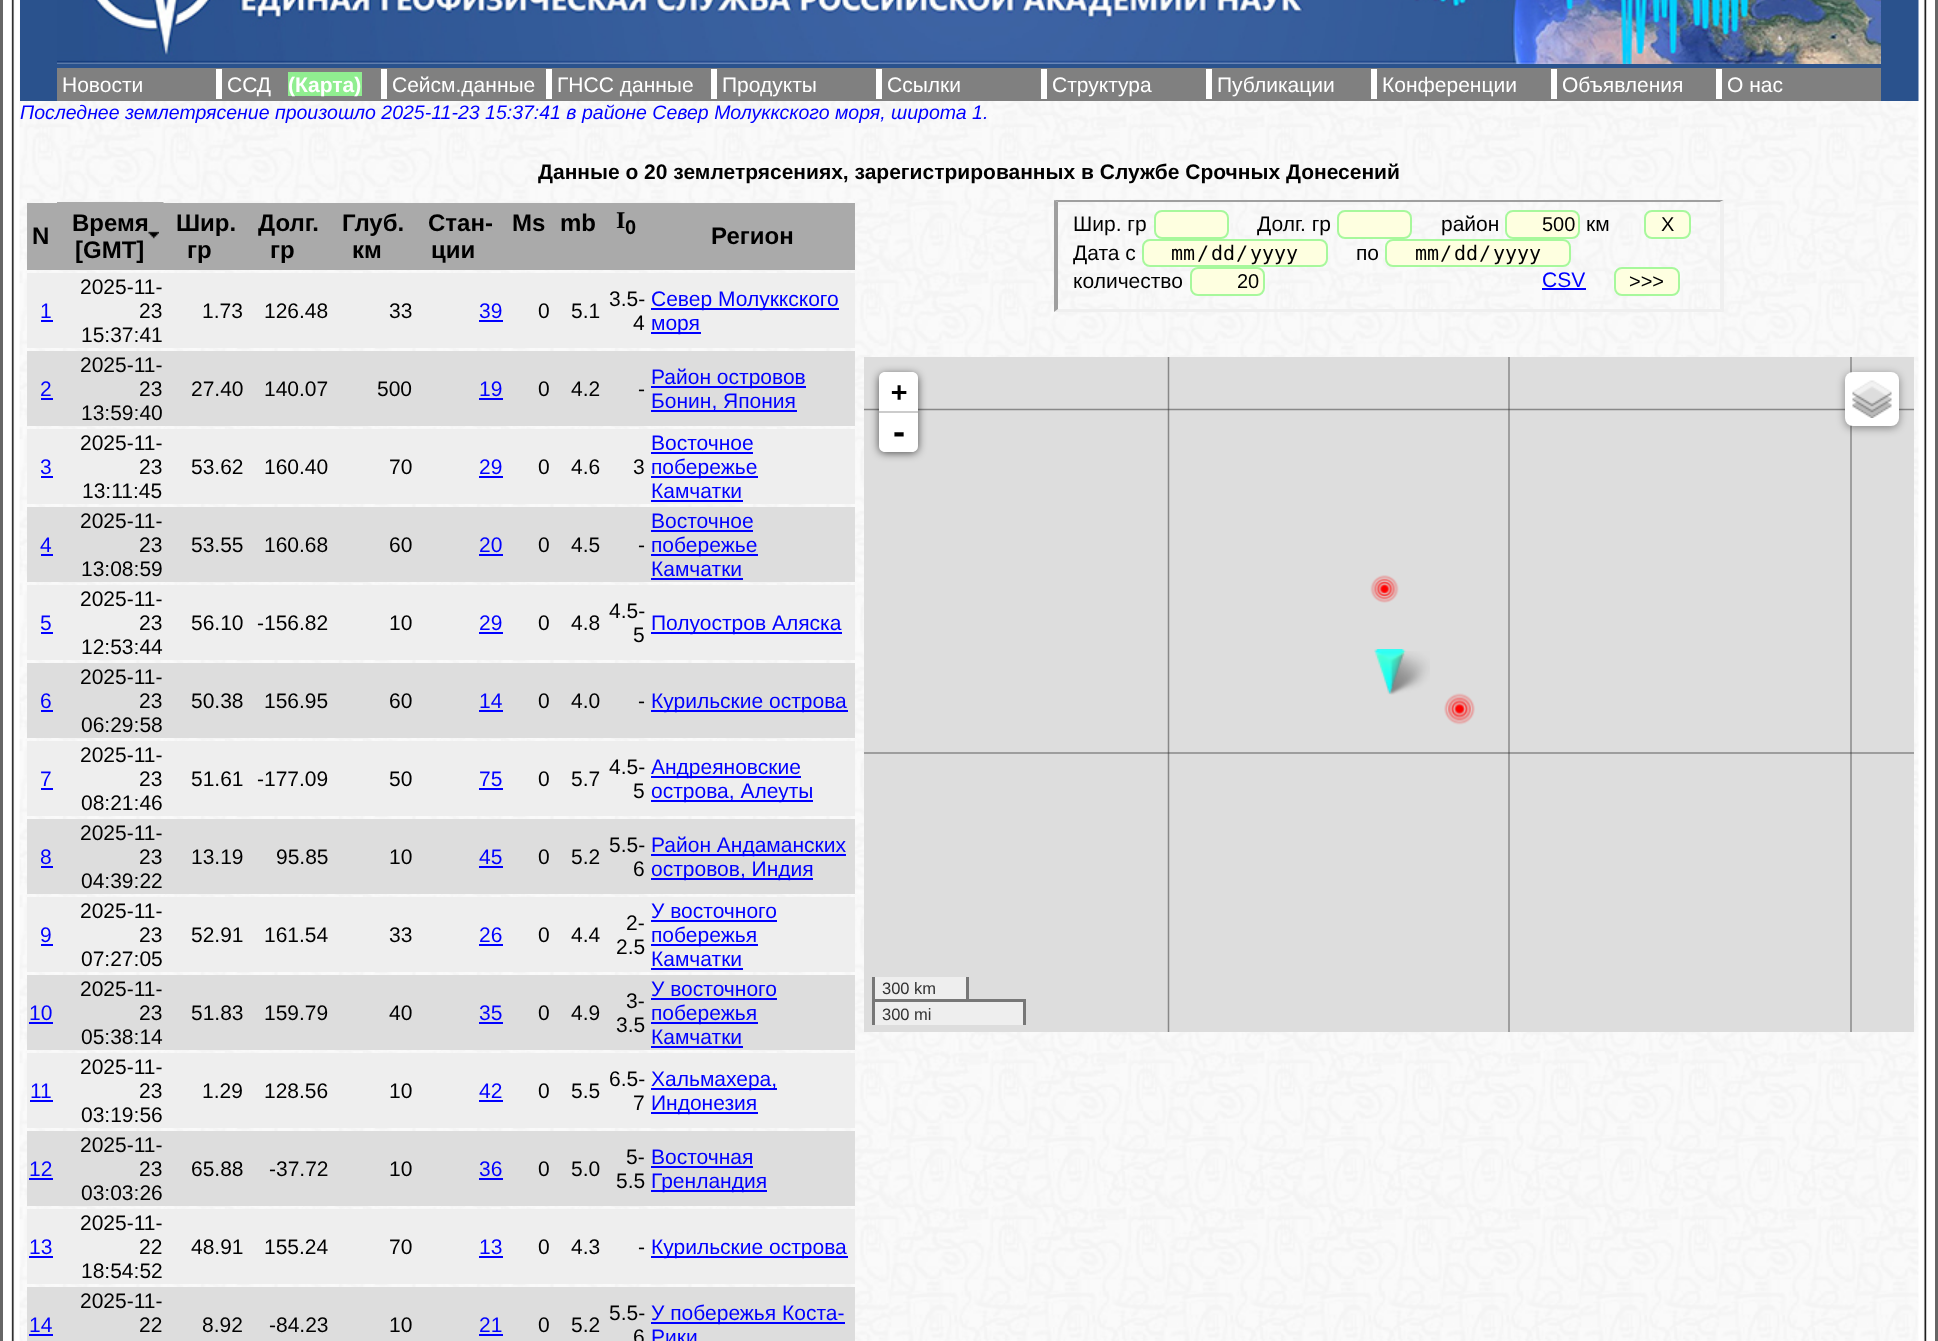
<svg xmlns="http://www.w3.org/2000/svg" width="1938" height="1341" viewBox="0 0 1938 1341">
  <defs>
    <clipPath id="clip1"><rect x="864" y="357" width="1050" height="675"/></clipPath>
  </defs>
  <rect width="100%" height="100%" fill="rgb(102,102,102)"/>
  <image x="19" y="0" width="1900" height="1341" href="pic1.png"/>
  <image x="3" y="0" width="17" height="1341" href="pic2.png"/>
  <rect x="20" y="0" width="1899" height="101" fill="rgb(42,82,141)"/>
  <image x="57" y="0" width="1824" height="64" href="pic3.png"/>
  <rect x="57" y="68" width="1824" height="33" fill="rgb(128,128,128)"/>
  <text x="62" y="92" font-family="Liberation Sans" font-size="21" fill="rgb(255,255,255)">Новости</text>
  <rect x="216" y="69" width="6" height="30" fill="rgb(255,255,255)"/>
  <text x="227" y="92" font-family="Liberation Sans" font-size="21" fill="rgb(255,255,255)">ССД</text>
  <rect x="288" y="72" width="74" height="24" fill="rgb(144,238,144)"/>
  <text x="288" y="92" font-family="Liberation Sans" font-size="21" font-weight="bold" fill="rgb(255,255,255)">(Карта)</text>
  <rect x="381" y="69" width="6" height="30" fill="rgb(255,255,255)"/>
  <text x="392" y="92" font-family="Liberation Sans" font-size="21" fill="rgb(255,255,255)">Сейсм.данные</text>
  <rect x="546" y="69" width="6" height="30" fill="rgb(255,255,255)"/>
  <text x="557" y="92" font-family="Liberation Sans" font-size="21" fill="rgb(255,255,255)">ГНСС данные</text>
  <rect x="711" y="69" width="6" height="30" fill="rgb(255,255,255)"/>
  <text x="722" y="92" font-family="Liberation Sans" font-size="21" fill="rgb(255,255,255)">Продукты</text>
  <rect x="876" y="69" width="6" height="30" fill="rgb(255,255,255)"/>
  <text x="887" y="92" font-family="Liberation Sans" font-size="21" fill="rgb(255,255,255)">Ссылки</text>
  <rect x="1041" y="69" width="6" height="30" fill="rgb(255,255,255)"/>
  <text x="1052" y="92" font-family="Liberation Sans" font-size="21" fill="rgb(255,255,255)">Структура</text>
  <rect x="1206" y="69" width="6" height="30" fill="rgb(255,255,255)"/>
  <text x="1217" y="92" font-family="Liberation Sans" font-size="21" fill="rgb(255,255,255)">Публикации</text>
  <rect x="1371" y="69" width="6" height="30" fill="rgb(255,255,255)"/>
  <text x="1382" y="92" font-family="Liberation Sans" font-size="21" fill="rgb(255,255,255)">Конференции</text>
  <rect x="1551" y="69" width="6" height="30" fill="rgb(255,255,255)"/>
  <text x="1562" y="92" font-family="Liberation Sans" font-size="21" fill="rgb(255,255,255)">Объявления</text>
  <rect x="1716" y="69" width="6" height="30" fill="rgb(255,255,255)"/>
  <text x="1727" y="92" font-family="Liberation Sans" font-size="21" fill="rgb(255,255,255)">О нас</text>
  <image x="1918" y="0" width="17" height="1341" href="pic4.png"/>
  <text x="20" y="119" font-family="Liberation Sans" font-size="19.5" font-style="italic" fill="rgb(0,0,255)">Последнее землетрясение произошло 2025-11-23 15:37:41 в районе Север Молуккского моря, широта 1.</text>
  <text x="538" y="179" font-family="Liberation Sans" font-size="21" font-weight="bold" fill="rgb(0,0,0)">Данные о 20 землетрясениях, зарегистрированных в Службе Срочных Донесений</text>
  <rect x="27" y="203" width="828" height="67" fill="rgb(170,170,170)"/>
  <image x="57" y="202" width="107" height="37" href="pic5.png"/>
  <g font-family="Liberation Sans" font-size="24" font-weight="bold" fill="rgb(0,0,0)">
    <text x="72" y="231">Время</text>
    <text x="75" y="258">[GMT]</text>
    <text x="176" y="231">Шир.</text>
    <text x="187" y="258">гр</text>
    <text x="258" y="231">Долг.</text>
    <text x="270" y="258">гр</text>
    <text x="342" y="231">Глуб.</text>
    <text x="352" y="258">км</text>
    <text x="428" y="231">Стан-</text>
    <text x="431" y="258">ции</text>
    <text x="512" y="231">Ms</text>
    <text x="560" y="231">mb</text>
  </g>
  <text x="616" y="228" font-family="Liberation Serif" font-size="24" font-weight="bold" fill="rgb(0,0,0)">I</text>
  <text x="625" y="234" font-family="Liberation Sans" font-size="20" font-weight="bold" fill="rgb(0,0,0)">0</text>
  <g font-family="Liberation Sans" font-size="24" font-weight="bold" fill="rgb(0,0,0)">
    <text x="32" y="244">N</text>
    <text x="711" y="244">Регион</text>
  </g>
  <rect x="27" y="273" width="828" height="75" fill="rgb(238,238,238)"/>
  <text x="40" y="318" font-family="Liberation Sans" font-size="21" fill="rgb(0,0,255)">1</text>
  <rect x="41" y="320" width="12" height="2" fill="rgb(0,0,255)"/>
  <g font-family="Liberation Sans" font-size="21" fill="rgb(0,0,0)">
    <text x="80" y="294">2025-11-</text>
    <text x="139" y="318">23</text>
    <text x="81" y="342">15:37:41</text>
    <text x="202" y="318">1.73</text>
    <text x="264" y="318">126.48</text>
    <text x="389" y="318">33</text>
  </g>
  <text x="479" y="318" font-family="Liberation Sans" font-size="21" fill="rgb(0,0,255)">39</text>
  <rect x="479" y="320" width="24" height="2" fill="rgb(0,0,255)"/>
  <g font-family="Liberation Sans" font-size="21" fill="rgb(0,0,0)">
    <text x="538" y="318">0</text>
    <text x="571" y="318">5.1</text>
    <text x="609" y="306">3.5-</text>
    <text x="633" y="330">4</text>
  </g>
  <rect x="651" y="308" width="188" height="2" fill="rgb(0,0,255)"/>
  <text x="651" y="306" font-family="Liberation Sans" font-size="21" fill="rgb(0,0,255)">Север Молуккского</text>
  <rect x="651" y="332" width="50" height="2" fill="rgb(0,0,255)"/>
  <text x="651" y="330" font-family="Liberation Sans" font-size="21" fill="rgb(0,0,255)">моря</text>
  <rect x="27" y="351" width="828" height="75" fill="rgb(221,221,221)"/>
  <text x="40" y="396" font-family="Liberation Sans" font-size="21" fill="rgb(0,0,255)">2</text>
  <rect x="41" y="398" width="12" height="2" fill="rgb(0,0,255)"/>
  <g font-family="Liberation Sans" font-size="21" fill="rgb(0,0,0)">
    <text x="80" y="372">2025-11-</text>
    <text x="139" y="396">23</text>
    <text x="81" y="420">13:59:40</text>
    <text x="191" y="396">27.40</text>
    <text x="264" y="396">140.07</text>
    <text x="377" y="396">500</text>
  </g>
  <text x="479" y="396" font-family="Liberation Sans" font-size="21" fill="rgb(0,0,255)">19</text>
  <rect x="479" y="398" width="24" height="2" fill="rgb(0,0,255)"/>
  <g font-family="Liberation Sans" font-size="21" fill="rgb(0,0,0)">
    <text x="538" y="396">0</text>
    <text x="571" y="396">4.2</text>
    <text x="638" y="396">-</text>
  </g>
  <rect x="651" y="386" width="155" height="2" fill="rgb(0,0,255)"/>
  <text x="651" y="384" font-family="Liberation Sans" font-size="21" fill="rgb(0,0,255)">Район островов</text>
  <rect x="651" y="410" width="146" height="2" fill="rgb(0,0,255)"/>
  <text x="651" y="408" font-family="Liberation Sans" font-size="21" fill="rgb(0,0,255)">Бонин, Япония</text>
  <rect x="27" y="429" width="828" height="75" fill="rgb(238,238,238)"/>
  <text x="40" y="474" font-family="Liberation Sans" font-size="21" fill="rgb(0,0,255)">3</text>
  <rect x="41" y="476" width="12" height="2" fill="rgb(0,0,255)"/>
  <g font-family="Liberation Sans" font-size="21" fill="rgb(0,0,0)">
    <text x="80" y="450">2025-11-</text>
    <text x="139" y="474">23</text>
    <text x="82" y="498">13:11:45</text>
    <text x="191" y="474">53.62</text>
    <text x="264" y="474">160.40</text>
    <text x="389" y="474">70</text>
  </g>
  <text x="479" y="474" font-family="Liberation Sans" font-size="21" fill="rgb(0,0,255)">29</text>
  <rect x="479" y="476" width="24" height="2" fill="rgb(0,0,255)"/>
  <g font-family="Liberation Sans" font-size="21" fill="rgb(0,0,0)">
    <text x="538" y="474">0</text>
    <text x="571" y="474">4.6</text>
    <text x="633" y="474">3</text>
  </g>
  <text x="651" y="450" font-family="Liberation Sans" font-size="21" fill="rgb(0,0,255)">Восточное</text>
  <rect x="651" y="452" width="102" height="2" fill="rgb(0,0,255)"/>
  <rect x="651" y="476" width="107" height="2" fill="rgb(0,0,255)"/>
  <g font-family="Liberation Sans" font-size="21" fill="rgb(0,0,255)">
    <text>
      <tspan x="651" y="474">побережье</tspan>
      <tspan x="651" y="498">Камчатки</tspan>
    </text>
  </g>
  <rect x="651" y="500" width="92" height="2" fill="rgb(0,0,255)"/>
  <rect x="27" y="507" width="828" height="75" fill="rgb(221,221,221)"/>
  <text x="40" y="552" font-family="Liberation Sans" font-size="21" fill="rgb(0,0,255)">4</text>
  <rect x="41" y="554" width="12" height="2" fill="rgb(0,0,255)"/>
  <g font-family="Liberation Sans" font-size="21" fill="rgb(0,0,0)">
    <text x="80" y="528">2025-11-</text>
    <text x="139" y="552">23</text>
    <text x="81" y="576">13:08:59</text>
    <text x="191" y="552">53.55</text>
    <text x="264" y="552">160.68</text>
    <text x="389" y="552">60</text>
  </g>
  <text x="479" y="552" font-family="Liberation Sans" font-size="21" fill="rgb(0,0,255)">20</text>
  <rect x="479" y="554" width="24" height="2" fill="rgb(0,0,255)"/>
  <g font-family="Liberation Sans" font-size="21" fill="rgb(0,0,0)">
    <text x="538" y="552">0</text>
    <text x="571" y="552">4.5</text>
    <text x="638" y="552">-</text>
  </g>
  <text x="651" y="528" font-family="Liberation Sans" font-size="21" fill="rgb(0,0,255)">Восточное</text>
  <rect x="651" y="530" width="102" height="2" fill="rgb(0,0,255)"/>
  <rect x="651" y="554" width="107" height="2" fill="rgb(0,0,255)"/>
  <g font-family="Liberation Sans" font-size="21" fill="rgb(0,0,255)">
    <text>
      <tspan x="651" y="552">побережье</tspan>
      <tspan x="651" y="576">Камчатки</tspan>
    </text>
  </g>
  <rect x="651" y="578" width="92" height="2" fill="rgb(0,0,255)"/>
  <rect x="27" y="585" width="828" height="75" fill="rgb(238,238,238)"/>
  <text x="40" y="630" font-family="Liberation Sans" font-size="21" fill="rgb(0,0,255)">5</text>
  <rect x="41" y="632" width="12" height="2" fill="rgb(0,0,255)"/>
  <g font-family="Liberation Sans" font-size="21" fill="rgb(0,0,0)">
    <text x="80" y="606">2025-11-</text>
    <text x="139" y="630">23</text>
    <text x="81" y="654">12:53:44</text>
    <text x="191" y="630">56.10</text>
    <text x="257" y="630">-156.82</text>
    <text x="389" y="630">10</text>
  </g>
  <text x="479" y="630" font-family="Liberation Sans" font-size="21" fill="rgb(0,0,255)">29</text>
  <rect x="479" y="632" width="24" height="2" fill="rgb(0,0,255)"/>
  <g font-family="Liberation Sans" font-size="21" fill="rgb(0,0,0)">
    <text x="538" y="630">0</text>
    <text x="571" y="630">4.8</text>
    <text x="609" y="618">4.5-</text>
    <text x="633" y="642">5</text>
  </g>
  <rect x="651" y="632" width="191" height="2" fill="rgb(0,0,255)"/>
  <text x="651" y="630" font-family="Liberation Sans" font-size="21" fill="rgb(0,0,255)">Полуостров Аляска</text>
  <rect x="27" y="663" width="828" height="75" fill="rgb(221,221,221)"/>
  <text x="40" y="708" font-family="Liberation Sans" font-size="21" fill="rgb(0,0,255)">6</text>
  <rect x="41" y="710" width="12" height="2" fill="rgb(0,0,255)"/>
  <g font-family="Liberation Sans" font-size="21" fill="rgb(0,0,0)">
    <text x="80" y="684">2025-11-</text>
    <text x="139" y="708">23</text>
    <text x="81" y="732">06:29:58</text>
    <text x="191" y="708">50.38</text>
    <text x="264" y="708">156.95</text>
    <text x="389" y="708">60</text>
  </g>
  <text x="479" y="708" font-family="Liberation Sans" font-size="21" fill="rgb(0,0,255)">14</text>
  <rect x="479" y="710" width="24" height="2" fill="rgb(0,0,255)"/>
  <g font-family="Liberation Sans" font-size="21" fill="rgb(0,0,0)">
    <text x="538" y="708">0</text>
    <text x="571" y="708">4.0</text>
    <text x="638" y="708">-</text>
  </g>
  <rect x="651" y="710" width="197" height="2" fill="rgb(0,0,255)"/>
  <text x="651" y="708" font-family="Liberation Sans" font-size="21" fill="rgb(0,0,255)">Курильские острова</text>
  <rect x="27" y="741" width="828" height="75" fill="rgb(238,238,238)"/>
  <text x="40" y="786" font-family="Liberation Sans" font-size="21" fill="rgb(0,0,255)">7</text>
  <rect x="41" y="788" width="12" height="2" fill="rgb(0,0,255)"/>
  <g font-family="Liberation Sans" font-size="21" fill="rgb(0,0,0)">
    <text x="80" y="762">2025-11-</text>
    <text x="139" y="786">23</text>
    <text x="81" y="810">08:21:46</text>
    <text x="191" y="786">51.61</text>
    <text x="257" y="786">-177.09</text>
    <text x="389" y="786">50</text>
  </g>
  <text x="479" y="786" font-family="Liberation Sans" font-size="21" fill="rgb(0,0,255)">75</text>
  <rect x="479" y="788" width="24" height="2" fill="rgb(0,0,255)"/>
  <g font-family="Liberation Sans" font-size="21" fill="rgb(0,0,0)">
    <text x="538" y="786">0</text>
    <text x="571" y="786">5.7</text>
    <text x="609" y="774">4.5-</text>
    <text x="633" y="798">5</text>
  </g>
  <rect x="651" y="776" width="150" height="2" fill="rgb(0,0,255)"/>
  <text x="651" y="774" font-family="Liberation Sans" font-size="21" fill="rgb(0,0,255)">Андреяновские</text>
  <rect x="651" y="800" width="162" height="2" fill="rgb(0,0,255)"/>
  <text x="651" y="798" font-family="Liberation Sans" font-size="21" fill="rgb(0,0,255)">острова, Алеуты</text>
  <rect x="27" y="819" width="828" height="75" fill="rgb(221,221,221)"/>
  <text x="40" y="864" font-family="Liberation Sans" font-size="21" fill="rgb(0,0,255)">8</text>
  <rect x="41" y="866" width="12" height="2" fill="rgb(0,0,255)"/>
  <g font-family="Liberation Sans" font-size="21" fill="rgb(0,0,0)">
    <text x="80" y="840">2025-11-</text>
    <text x="139" y="864">23</text>
    <text x="81" y="888">04:39:22</text>
    <text x="191" y="864">13.19</text>
    <text x="276" y="864">95.85</text>
    <text x="389" y="864">10</text>
  </g>
  <text x="479" y="864" font-family="Liberation Sans" font-size="21" fill="rgb(0,0,255)">45</text>
  <rect x="479" y="866" width="24" height="2" fill="rgb(0,0,255)"/>
  <g font-family="Liberation Sans" font-size="21" fill="rgb(0,0,0)">
    <text x="538" y="864">0</text>
    <text x="571" y="864">5.2</text>
    <text x="609" y="852">5.5-</text>
    <text x="633" y="876">6</text>
  </g>
  <rect x="651" y="854" width="195" height="2" fill="rgb(0,0,255)"/>
  <text x="651" y="852" font-family="Liberation Sans" font-size="21" fill="rgb(0,0,255)">Район Андаманских</text>
  <rect x="651" y="878" width="162" height="2" fill="rgb(0,0,255)"/>
  <text x="651" y="876" font-family="Liberation Sans" font-size="21" fill="rgb(0,0,255)">островов, Индия</text>
  <rect x="27" y="897" width="828" height="75" fill="rgb(238,238,238)"/>
  <text x="40" y="942" font-family="Liberation Sans" font-size="21" fill="rgb(0,0,255)">9</text>
  <rect x="41" y="944" width="12" height="2" fill="rgb(0,0,255)"/>
  <g font-family="Liberation Sans" font-size="21" fill="rgb(0,0,0)">
    <text x="80" y="918">2025-11-</text>
    <text x="139" y="942">23</text>
    <text x="81" y="966">07:27:05</text>
    <text x="191" y="942">52.91</text>
    <text x="264" y="942">161.54</text>
    <text x="389" y="942">33</text>
  </g>
  <text x="479" y="942" font-family="Liberation Sans" font-size="21" fill="rgb(0,0,255)">26</text>
  <rect x="479" y="944" width="24" height="2" fill="rgb(0,0,255)"/>
  <g font-family="Liberation Sans" font-size="21" fill="rgb(0,0,0)">
    <text x="538" y="942">0</text>
    <text x="571" y="942">4.4</text>
    <text x="626" y="930">2-</text>
    <text x="616" y="954">2.5</text>
  </g>
  <text x="651" y="918" font-family="Liberation Sans" font-size="21" fill="rgb(0,0,255)">У восточного</text>
  <rect x="651" y="920" width="126" height="2" fill="rgb(0,0,255)"/>
  <rect x="651" y="944" width="107" height="2" fill="rgb(0,0,255)"/>
  <g font-family="Liberation Sans" font-size="21" fill="rgb(0,0,255)">
    <text>
      <tspan x="651" y="942">побережья</tspan>
      <tspan x="651" y="966">Камчатки</tspan>
    </text>
  </g>
  <rect x="651" y="968" width="92" height="2" fill="rgb(0,0,255)"/>
  <rect x="27" y="975" width="828" height="75" fill="rgb(221,221,221)"/>
  <text x="29" y="1020" font-family="Liberation Sans" font-size="21" fill="rgb(0,0,255)">10</text>
  <rect x="29" y="1022" width="24" height="2" fill="rgb(0,0,255)"/>
  <g font-family="Liberation Sans" font-size="21" fill="rgb(0,0,0)">
    <text x="80" y="996">2025-11-</text>
    <text x="139" y="1020">23</text>
    <text x="81" y="1044">05:38:14</text>
    <text x="191" y="1020">51.83</text>
    <text x="264" y="1020">159.79</text>
    <text x="389" y="1020">40</text>
  </g>
  <text x="479" y="1020" font-family="Liberation Sans" font-size="21" fill="rgb(0,0,255)">35</text>
  <rect x="479" y="1022" width="24" height="2" fill="rgb(0,0,255)"/>
  <g font-family="Liberation Sans" font-size="21" fill="rgb(0,0,0)">
    <text x="538" y="1020">0</text>
    <text x="571" y="1020">4.9</text>
    <text x="626" y="1008">3-</text>
    <text x="616" y="1032">3.5</text>
  </g>
  <text x="651" y="996" font-family="Liberation Sans" font-size="21" fill="rgb(0,0,255)">У восточного</text>
  <rect x="651" y="998" width="126" height="2" fill="rgb(0,0,255)"/>
  <rect x="651" y="1022" width="107" height="2" fill="rgb(0,0,255)"/>
  <g font-family="Liberation Sans" font-size="21" fill="rgb(0,0,255)">
    <text>
      <tspan x="651" y="1020">побережья</tspan>
      <tspan x="651" y="1044">Камчатки</tspan>
    </text>
  </g>
  <rect x="651" y="1046" width="92" height="2" fill="rgb(0,0,255)"/>
  <rect x="27" y="1053" width="828" height="75" fill="rgb(238,238,238)"/>
  <text x="30" y="1098" font-family="Liberation Sans" font-size="21" fill="rgb(0,0,255)">11</text>
  <rect x="30" y="1100" width="23" height="2" fill="rgb(0,0,255)"/>
  <g font-family="Liberation Sans" font-size="21" fill="rgb(0,0,0)">
    <text x="80" y="1074">2025-11-</text>
    <text x="139" y="1098">23</text>
    <text x="81" y="1122">03:19:56</text>
    <text x="202" y="1098">1.29</text>
    <text x="264" y="1098">128.56</text>
    <text x="389" y="1098">10</text>
  </g>
  <text x="479" y="1098" font-family="Liberation Sans" font-size="21" fill="rgb(0,0,255)">42</text>
  <rect x="479" y="1100" width="24" height="2" fill="rgb(0,0,255)"/>
  <g font-family="Liberation Sans" font-size="21" fill="rgb(0,0,0)">
    <text x="538" y="1098">0</text>
    <text x="571" y="1098">5.5</text>
    <text x="609" y="1086">6.5-</text>
    <text x="633" y="1110">7</text>
  </g>
  <rect x="651" y="1088" width="126" height="2" fill="rgb(0,0,255)"/>
  <text x="651" y="1086" font-family="Liberation Sans" font-size="21" fill="rgb(0,0,255)">Хальмахера,</text>
  <rect x="651" y="1112" width="107" height="2" fill="rgb(0,0,255)"/>
  <text x="651" y="1110" font-family="Liberation Sans" font-size="21" fill="rgb(0,0,255)">Индонезия</text>
  <rect x="27" y="1131" width="828" height="75" fill="rgb(221,221,221)"/>
  <text x="29" y="1176" font-family="Liberation Sans" font-size="21" fill="rgb(0,0,255)">12</text>
  <rect x="29" y="1178" width="24" height="2" fill="rgb(0,0,255)"/>
  <g font-family="Liberation Sans" font-size="21" fill="rgb(0,0,0)">
    <text x="80" y="1152">2025-11-</text>
    <text x="139" y="1176">23</text>
    <text x="81" y="1200">03:03:26</text>
    <text x="191" y="1176">65.88</text>
    <text x="269" y="1176">-37.72</text>
    <text x="389" y="1176">10</text>
  </g>
  <text x="479" y="1176" font-family="Liberation Sans" font-size="21" fill="rgb(0,0,255)">36</text>
  <rect x="479" y="1178" width="24" height="2" fill="rgb(0,0,255)"/>
  <g font-family="Liberation Sans" font-size="21" fill="rgb(0,0,0)">
    <text x="538" y="1176">0</text>
    <text x="571" y="1176">5.0</text>
    <text x="626" y="1164">5-</text>
    <text x="616" y="1188">5.5</text>
  </g>
  <text x="651" y="1164" font-family="Liberation Sans" font-size="21" fill="rgb(0,0,255)">Восточная</text>
  <rect x="651" y="1166" width="102" height="2" fill="rgb(0,0,255)"/>
  <rect x="651" y="1190" width="116" height="2" fill="rgb(0,0,255)"/>
  <text x="651" y="1188" font-family="Liberation Sans" font-size="21" fill="rgb(0,0,255)">Гренландия</text>
  <rect x="27" y="1209" width="828" height="75" fill="rgb(238,238,238)"/>
  <text x="29" y="1254" font-family="Liberation Sans" font-size="21" fill="rgb(0,0,255)">13</text>
  <rect x="29" y="1256" width="24" height="2" fill="rgb(0,0,255)"/>
  <g font-family="Liberation Sans" font-size="21" fill="rgb(0,0,0)">
    <text x="80" y="1230">2025-11-</text>
    <text x="139" y="1254">22</text>
    <text x="81" y="1278">18:54:52</text>
    <text x="191" y="1254">48.91</text>
    <text x="264" y="1254">155.24</text>
    <text x="389" y="1254">70</text>
  </g>
  <text x="479" y="1254" font-family="Liberation Sans" font-size="21" fill="rgb(0,0,255)">13</text>
  <rect x="479" y="1256" width="24" height="2" fill="rgb(0,0,255)"/>
  <g font-family="Liberation Sans" font-size="21" fill="rgb(0,0,0)">
    <text x="538" y="1254">0</text>
    <text x="571" y="1254">4.3</text>
    <text x="638" y="1254">-</text>
  </g>
  <rect x="651" y="1256" width="197" height="2" fill="rgb(0,0,255)"/>
  <text x="651" y="1254" font-family="Liberation Sans" font-size="21" fill="rgb(0,0,255)">Курильские острова</text>
  <rect x="27" y="1287" width="828" height="54" fill="rgb(221,221,221)"/>
  <text x="29" y="1332" font-family="Liberation Sans" font-size="21" fill="rgb(0,0,255)">14</text>
  <rect x="29" y="1334" width="24" height="2" fill="rgb(0,0,255)"/>
  <g font-family="Liberation Sans" font-size="21" fill="rgb(0,0,0)">
    <text x="80" y="1308">2025-11-</text>
    <text x="139" y="1332">22</text>
    <text x="202" y="1332">8.92</text>
    <text x="269" y="1332">-84.23</text>
    <text x="389" y="1332">10</text>
  </g>
  <text x="479" y="1332" font-family="Liberation Sans" font-size="21" fill="rgb(0,0,255)">21</text>
  <rect x="479" y="1334" width="24" height="2" fill="rgb(0,0,255)"/>
  <g font-family="Liberation Sans" font-size="21" fill="rgb(0,0,0)">
    <text x="538" y="1332">0</text>
    <text x="571" y="1332">5.2</text>
    <text x="609" y="1320">5.5-</text>
    <text x="633" y="1344">6</text>
  </g>
  <rect x="651" y="1322" width="194" height="2" fill="rgb(0,0,255)"/>
  <g font-family="Liberation Sans" font-size="21" fill="rgb(0,0,255)">
    <text>
      <tspan x="651" y="1320">У побережья Коста-</tspan>
      <tspan x="651" y="1344">Рики</tspan>
    </text>
  </g>
  <path d="M1054 200H1724L1720 202H1058Z" fill="rgb(159,159,159)"/>
  <path d="M1724 200V312L1720 309V202Z" fill="rgb(239,239,239)"/>
  <path d="M1724 312H1054L1058 309H1720Z" fill="rgb(239,239,239)"/>
  <path d="M1054 312V200L1058 202V309Z" fill="rgb(159,159,159)"/>
  <text x="1073" y="231" font-family="Liberation Sans" font-size="21" fill="rgb(0,0,0)">Шир. гр</text>
  <rect x="1155" y="211" width="73" height="27" rx="7" fill="rgb(254,255,224)" stroke="rgb(167,248,156)" stroke-width="2"/>
  <text x="1257" y="231" font-family="Liberation Sans" font-size="21" fill="rgb(0,0,0)">Долг. гр</text>
  <rect x="1338" y="211" width="73" height="27" rx="7" fill="rgb(254,255,224)" stroke="rgb(167,248,156)" stroke-width="2"/>
  <text x="1441" y="231" font-family="Liberation Sans" font-size="21" fill="rgb(0,0,0)">район</text>
  <rect x="1506" y="211" width="73" height="27" rx="7" fill="rgb(254,255,224)" stroke="rgb(167,248,156)" stroke-width="2"/>
  <text x="1542" y="231" font-family="Liberation Sans" font-size="20" fill="rgb(0,0,0)">500</text>
  <text x="1586" y="231" font-family="Liberation Sans" font-size="21" fill="rgb(0,0,0)">км</text>
  <rect x="1645" y="211" width="45" height="27" rx="7" fill="rgb(254,255,224)" stroke="rgb(167,248,156)" stroke-width="2"/>
  <text x="1661" y="231" font-family="Liberation Sans" font-size="20" fill="rgb(0,0,0)">X</text>
  <text x="1073" y="260" font-family="Liberation Sans" font-size="21" fill="rgb(0,0,0)">Дата с</text>
  <rect x="1143" y="240" width="184" height="26" rx="7" fill="rgb(254,255,224)" stroke="rgb(167,248,156)" stroke-width="2"/>
  <g font-family="DejaVu Sans Mono" font-size="20" fill="rgb(0,0,0)">
    <text x="1171" y="260">mm</text>
    <text x="1197" y="260">/</text>
    <text x="1211" y="260">dd</text>
    <text x="1236" y="260">/</text>
    <text x="1250" y="260">yyyy</text>
  </g>
  <text x="1356" y="260" font-family="Liberation Sans" font-size="21" fill="rgb(0,0,0)">по</text>
  <rect x="1386" y="240" width="184" height="26" rx="7" fill="rgb(254,255,224)" stroke="rgb(167,248,156)" stroke-width="2"/>
  <g font-family="DejaVu Sans Mono" font-size="20" fill="rgb(0,0,0)">
    <text x="1415" y="260">mm</text>
    <text x="1440" y="260">/</text>
    <text x="1454" y="260">dd</text>
    <text x="1479" y="260">/</text>
    <text x="1493" y="260">yyyy</text>
  </g>
  <text x="1073" y="288" font-family="Liberation Sans" font-size="21" fill="rgb(0,0,0)">количество</text>
  <rect x="1191" y="268" width="73" height="27" rx="7" fill="rgb(254,255,224)" stroke="rgb(167,248,156)" stroke-width="2"/>
  <text x="1237" y="288" font-family="Liberation Sans" font-size="20" fill="rgb(0,0,0)">20</text>
  <text x="1542" y="287" font-family="Liberation Sans" font-size="21" fill="rgb(0,0,255)">CSV</text>
  <rect x="1542" y="288" width="44" height="2" fill="rgb(0,0,255)"/>
  <rect x="1615" y="268" width="64" height="27" rx="7" fill="rgb(254,255,224)" stroke="rgb(167,248,156)" stroke-width="2"/>
  <text x="1629" y="288" font-family="Liberation Sans" font-size="20" fill="rgb(0,0,0)">&gt;&gt;&gt;</text>
  <rect x="864" y="357" width="1050" height="675" fill="rgb(221,221,221)"/>
  <g clip-path="url(#clip1)">
    <path d="M1168.5 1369.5V19.5" fill="none" stroke="rgb(136,136,136)" stroke-width="1.5" stroke-linecap="round" stroke-linejoin="round"/>
    <path d="M1509 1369.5V19.5" fill="none" stroke="rgb(136,136,136)" stroke-width="1.5" stroke-linecap="round" stroke-linejoin="round"/>
    <path d="M1851 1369.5V19.5" fill="none" stroke="rgb(136,136,136)" stroke-width="1.5" stroke-linecap="round" stroke-linejoin="round"/>
    <path d="M339 753H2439" fill="none" stroke="rgba(51,51,51,0.5)" stroke-width="1.5" stroke-linecap="round" stroke-linejoin="round"/>
    <path d="M339 409.5H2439" fill="none" stroke="rgba(51,51,51,0.5)" stroke-width="1.5" stroke-linecap="round" stroke-linejoin="round"/>
  </g>
  <image x="1370" y="575" width="29" height="28" href="pic6.png"/>
  <image x="1384" y="651" width="46" height="44" href="pic9.png"/>
  <image x="1374" y="649" width="32" height="45" href="pic7.png"/>
  <image x="1444" y="693" width="31" height="32" href="pic8.png"/>
  <rect x="879" y="374" width="39" height="79" rx="6" fill="rgba(0,0,0,0.65)" filter="blur(4px)"/>
  <path d="M885 372H912C915.5 372 918 374.5 918 378V413H879V378C879 374.5 881.5 372 885 372Z" fill="rgb(255,255,255)"/>
  <rect x="879" y="411" width="39" height="2" fill="rgb(204,204,204)"/>
  <text x="891" y="401" font-family="DejaVu Sans Mono" font-size="27" font-weight="bold" fill="rgb(0,0,0)">+</text>
  <path d="M879 413H918V446C918 449.5 915.5 452 912 452H885C881.5 452 879 449.5 879 446Z" fill="rgb(255,255,255)"/>
  <text x="890" y="443" font-family="DejaVu Sans Mono" font-size="30" font-weight="bold" fill="rgb(0,0,0)">-</text>
  <rect x="1845" y="374" width="54" height="54" rx="8" fill="rgba(0,0,0,0.4)" filter="blur(4px)"/>
  <rect x="1845" y="372" width="54" height="54" rx="8" fill="rgb(255,255,255)"/>
  <image x="1852" y="380" width="40" height="38" href="pic10.png"/>
  <rect x="875" y="977" width="91" height="22" fill="rgb(238,238,238)"/>
  <rect x="966" y="977" width="3" height="25" fill="rgb(119,119,119)"/>
  <rect x="872" y="977" width="3" height="25" fill="rgb(119,119,119)"/>
  <text x="882" y="994" font-family="Liberation Sans" font-size="16.5" fill="rgb(51,51,51)">300 km</text>
  <rect x="875" y="1002" width="148" height="23" fill="rgba(255,255,255,0.5)"/>
  <rect x="872" y="999" width="154" height="3" fill="rgb(119,119,119)"/>
  <rect x="1023" y="999" width="3" height="26" fill="rgb(119,119,119)"/>
  <rect x="872" y="999" width="3" height="26" fill="rgb(119,119,119)"/>
  <text x="882" y="1020" font-family="Liberation Sans" font-size="16.5" fill="rgb(51,51,51)">300 mi</text>
</svg>
